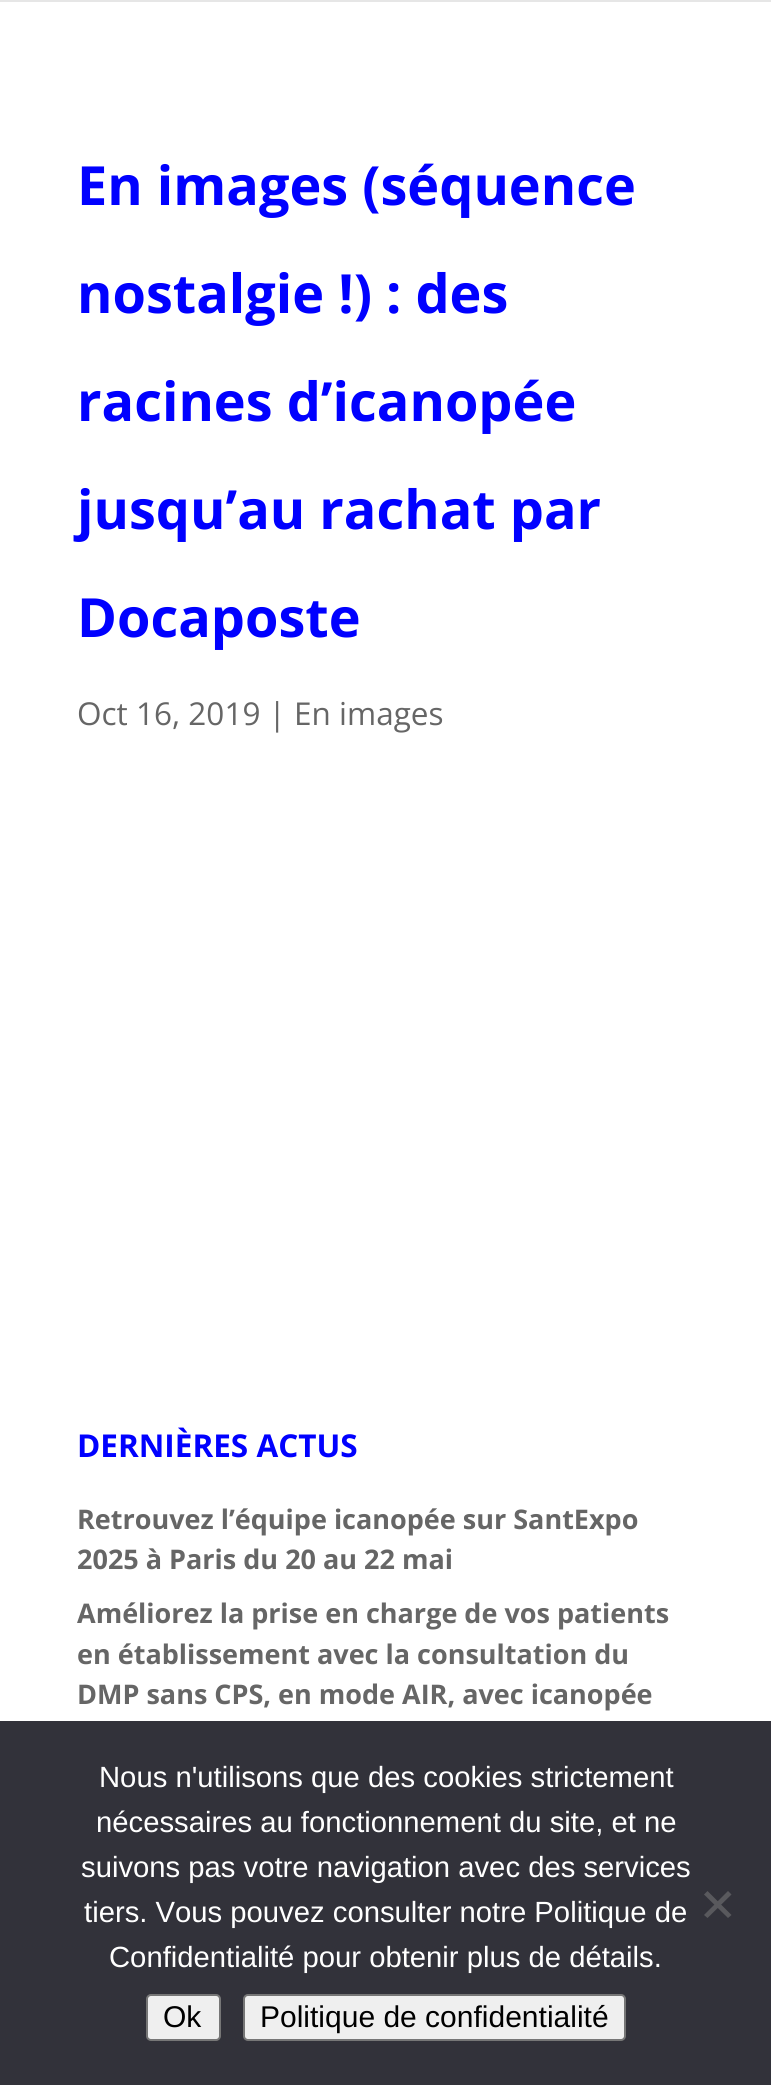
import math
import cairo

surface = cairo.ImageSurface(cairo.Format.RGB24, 771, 2085)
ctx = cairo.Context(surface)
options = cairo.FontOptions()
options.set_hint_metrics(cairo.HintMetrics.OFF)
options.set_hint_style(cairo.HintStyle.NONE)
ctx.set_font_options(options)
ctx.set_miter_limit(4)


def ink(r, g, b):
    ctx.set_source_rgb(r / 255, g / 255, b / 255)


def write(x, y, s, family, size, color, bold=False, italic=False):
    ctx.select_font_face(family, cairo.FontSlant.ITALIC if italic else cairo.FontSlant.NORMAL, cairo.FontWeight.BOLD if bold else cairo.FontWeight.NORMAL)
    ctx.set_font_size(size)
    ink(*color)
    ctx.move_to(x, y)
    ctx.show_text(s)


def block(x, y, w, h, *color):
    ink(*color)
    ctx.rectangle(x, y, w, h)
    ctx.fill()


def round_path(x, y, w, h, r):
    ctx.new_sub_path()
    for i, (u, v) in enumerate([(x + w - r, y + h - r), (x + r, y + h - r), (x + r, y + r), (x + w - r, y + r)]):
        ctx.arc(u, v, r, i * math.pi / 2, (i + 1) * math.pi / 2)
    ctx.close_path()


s1 = dict(family="Open Sans", size=54, color=(0, 0, 255), bold=True)
s2 = dict(family="Open Sans", size=31.5, color=(102, 102, 102))
s3 = dict(family="Open Sans", size=31.5, color=(0, 0, 255), bold=True)
s4 = dict(family="Open Sans", size=27, color=(102, 102, 102), bold=True)
s5 = dict(family="Liberation Sans", size=29.25, color=(255, 255, 255))
s6 = dict(family="Liberation Sans", size=30, color=(0, 0, 0))

ink(255, 255, 255)
ctx.paint()
ink(230, 230, 230)
ctx.new_path()
ctx.move_to(0, 0)
ctx.line_to(0, 2)
ctx.line_to(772, 2)
ctx.line_to(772, -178)
ctx.line_to(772, 0)
ctx.close_path()
ctx.fill()
write(77, 205, "En images (séquence", **s1)
write(77, 313, "nostalgie !) : des", **s1)
write(77, 421, "racines d’icanopée", **s1)
write(77, 529, "jusqu’au rachat par", **s1)
write(77, 637, "Docaposte", **s1)
write(77, 725, "Oct 16, 2019 | En images", **s2)
write(77, 1457, "DERNIÈRES ACTUS", **s3)
write(77, 1529, "Retrouvez l’équipe icanopée sur SantExpo", **s4)
write(77, 1569, "2025 à Paris du 20 au 22 mai", **s4)
write(77, 1623, "Améliorez la prise en charge de vos patients", **s4)
write(77, 1664, "en établissement avec la consultation du", **s4)
write(77, 1704, "DMP sans CPS, en mode AIR, avec icanopée", **s4)
block(0, 1721, 771, 364, 50, 50, 58)
write(99, 1787, "Nous n'utilisons que des cookies strictement", **s5)
write(96, 1832, "nécessaires au fonctionnement du site, et ne", **s5)
write(81, 1877, "suivons pas votre navigation avec des services", **s5)
write(84, 1922, "tiers. Vous pouvez consulter notre Politique de", **s5)
write(109, 1967, "Confidentialité pour obtenir plus de détails.", **s5)
ink(89, 89, 93)
ctx.new_path()
ctx.move_to(728, 1891)
ctx.line_to(731.5, 1894.5)
ctx.line_to(707.5, 1918)
ctx.line_to(704, 1915)
ctx.close_path()
ctx.fill()
ctx.new_path()
ctx.move_to(704, 1894.5)
ctx.line_to(707.5, 1891)
ctx.line_to(731.5, 1915)
ctx.line_to(728, 1918)
ctx.close_path()
ctx.fill()
ink(239, 239, 239)
round_path(147, 1995, 73, 45, 4)
ctx.fill_preserve()
ink(118, 118, 118)
ctx.stroke()
write(163, 2027, "Ok", **s6)
ink(239, 239, 239)
round_path(244, 1995, 381, 45, 4)
ctx.fill_preserve()
ink(118, 118, 118)
ctx.stroke()
write(260, 2027, "Politique de confidentialité", **s6)
surface.write_to_png("screenshot.png")
